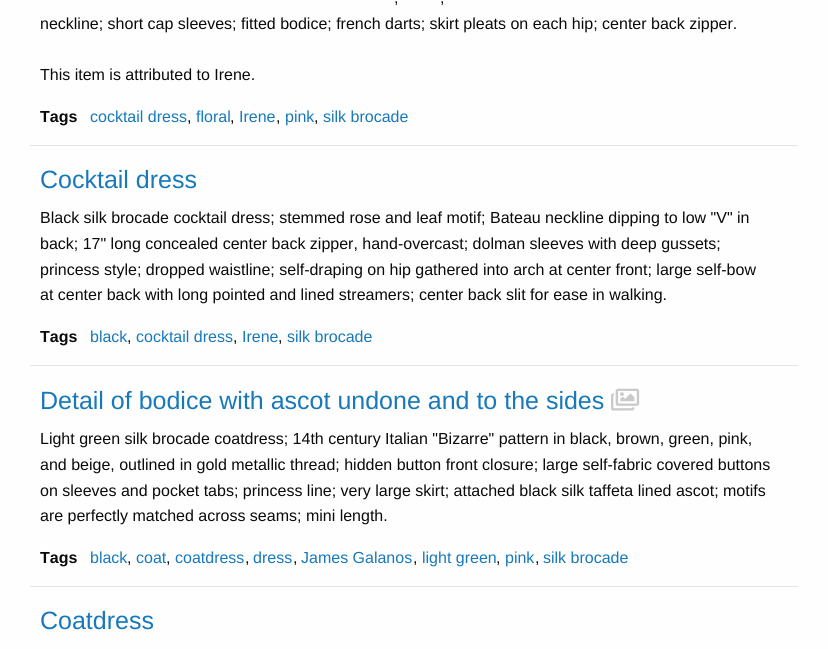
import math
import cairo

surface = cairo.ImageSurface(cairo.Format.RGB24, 828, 649)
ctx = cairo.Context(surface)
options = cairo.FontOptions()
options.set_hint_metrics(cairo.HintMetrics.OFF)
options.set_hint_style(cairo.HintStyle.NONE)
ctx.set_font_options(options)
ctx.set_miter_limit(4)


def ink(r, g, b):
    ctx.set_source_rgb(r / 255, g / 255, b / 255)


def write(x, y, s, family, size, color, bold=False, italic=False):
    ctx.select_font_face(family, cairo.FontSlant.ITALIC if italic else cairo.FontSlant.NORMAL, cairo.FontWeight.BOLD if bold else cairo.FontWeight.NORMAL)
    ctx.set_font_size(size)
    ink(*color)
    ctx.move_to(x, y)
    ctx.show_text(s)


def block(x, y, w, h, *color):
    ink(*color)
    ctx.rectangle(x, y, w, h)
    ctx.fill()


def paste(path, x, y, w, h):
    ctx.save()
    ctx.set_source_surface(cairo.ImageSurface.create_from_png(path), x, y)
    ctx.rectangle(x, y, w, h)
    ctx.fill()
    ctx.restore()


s1 = dict(family="Liberation Sans", size=16, color=(10, 10, 10))
s2 = dict(family="Liberation Sans", size=16, color=(10, 10, 10), bold=True)
s3 = dict(family="Liberation Sans", size=16, color=(23, 121, 186))
s4 = dict(family="Liberation Sans", size=25, color=(23, 121, 186))

ink(254, 254, 254)
ctx.paint()
block(30, 145, 768, 1, 230, 230, 230)
write(394, 3, ",", **s1)
write(440, 3, ",", **s1)
write(40, 29, "neckline; short cap sleeves; fitted bodice; french darts; skirt pleats on each hip; center back zipper.", **s1)
write(40, 80, "This item is attributed to Irene.", **s1)
write(40, 122, "Tags", **s2)
write(90, 122, "cocktail dress", **s3)
write(187, 122, ",", **s1)
write(196, 122, "floral", **s3)
write(230, 122, ",", **s1)
write(239, 122, "Irene", **s3)
write(276, 122, ",", **s1)
write(285, 122, "pink", **s3)
write(314, 122, ",", **s1)
write(323, 122, "silk brocade", **s3)
block(30, 365, 768, 1, 230, 230, 230)
write(40, 188, "Cocktail dress", **s4)
write(40, 223, "Black silk brocade cocktail dress; stemmed rose and leaf motif; Bateau neckline dipping to low \"V\" in", **s1)
write(40, 249, "back; 17\" long concealed center back zipper, hand-overcast; dolman sleeves with deep gussets;", **s1)
write(40, 275, "princess style; dropped waistline; self-draping on hip gathered into arch at center front; large self-bow", **s1)
write(40, 300, "at center back with long pointed and lined streamers; center back slit for ease in walking.", **s1)
write(40, 342, "Tags", **s2)
write(90, 342, "black", **s3)
write(127, 342, ",", **s1)
write(136, 342, "cocktail dress", **s3)
write(233, 342, ",", **s1)
write(242, 342, "Irene", **s3)
write(278, 342, ",", **s1)
write(287, 342, "silk brocade", **s3)
block(30, 586, 768, 1, 230, 230, 230)
write(40, 409, "Detail of bodice with ascot undone and to the sides", **s4)
paste("pic1.png", 611, 388, 29, 23)
write(40, 444, "Light green silk brocade coatdress; 14th century Italian \"Bizarre\" pattern in black, brown, green, pink,", **s1)
write(40, 470, "and beige, outlined in gold metallic thread; hidden button front closure; large self-fabric covered buttons", **s1)
write(40, 496, "on sleeves and pocket tabs; princess line; very large skirt; attached black silk taffeta lined ascot; motifs", **s1)
write(40, 521, "are perfectly matched across seams; mini length.", **s1)
write(40, 563, "Tags", **s2)
write(90, 563, "black", **s3)
write(127, 563, ",", **s1)
write(136, 563, "coat", **s3)
write(166, 563, ",", **s1)
write(175, 563, "coatdress", **s3)
write(245, 563, ",", **s1)
write(253, 563, "dress", **s3)
write(293, 563, ",", **s1)
write(301, 563, "James Galanos", **s3)
write(413, 563, ",", **s1)
write(422, 563, "light green", **s3)
write(496, 563, ",", **s1)
write(505, 563, "pink", **s3)
write(535, 563, ",", **s1)
write(543, 563, "silk brocade", **s3)
write(40, 629, "Coatdress", **s4)
surface.write_to_png("screenshot.png")
